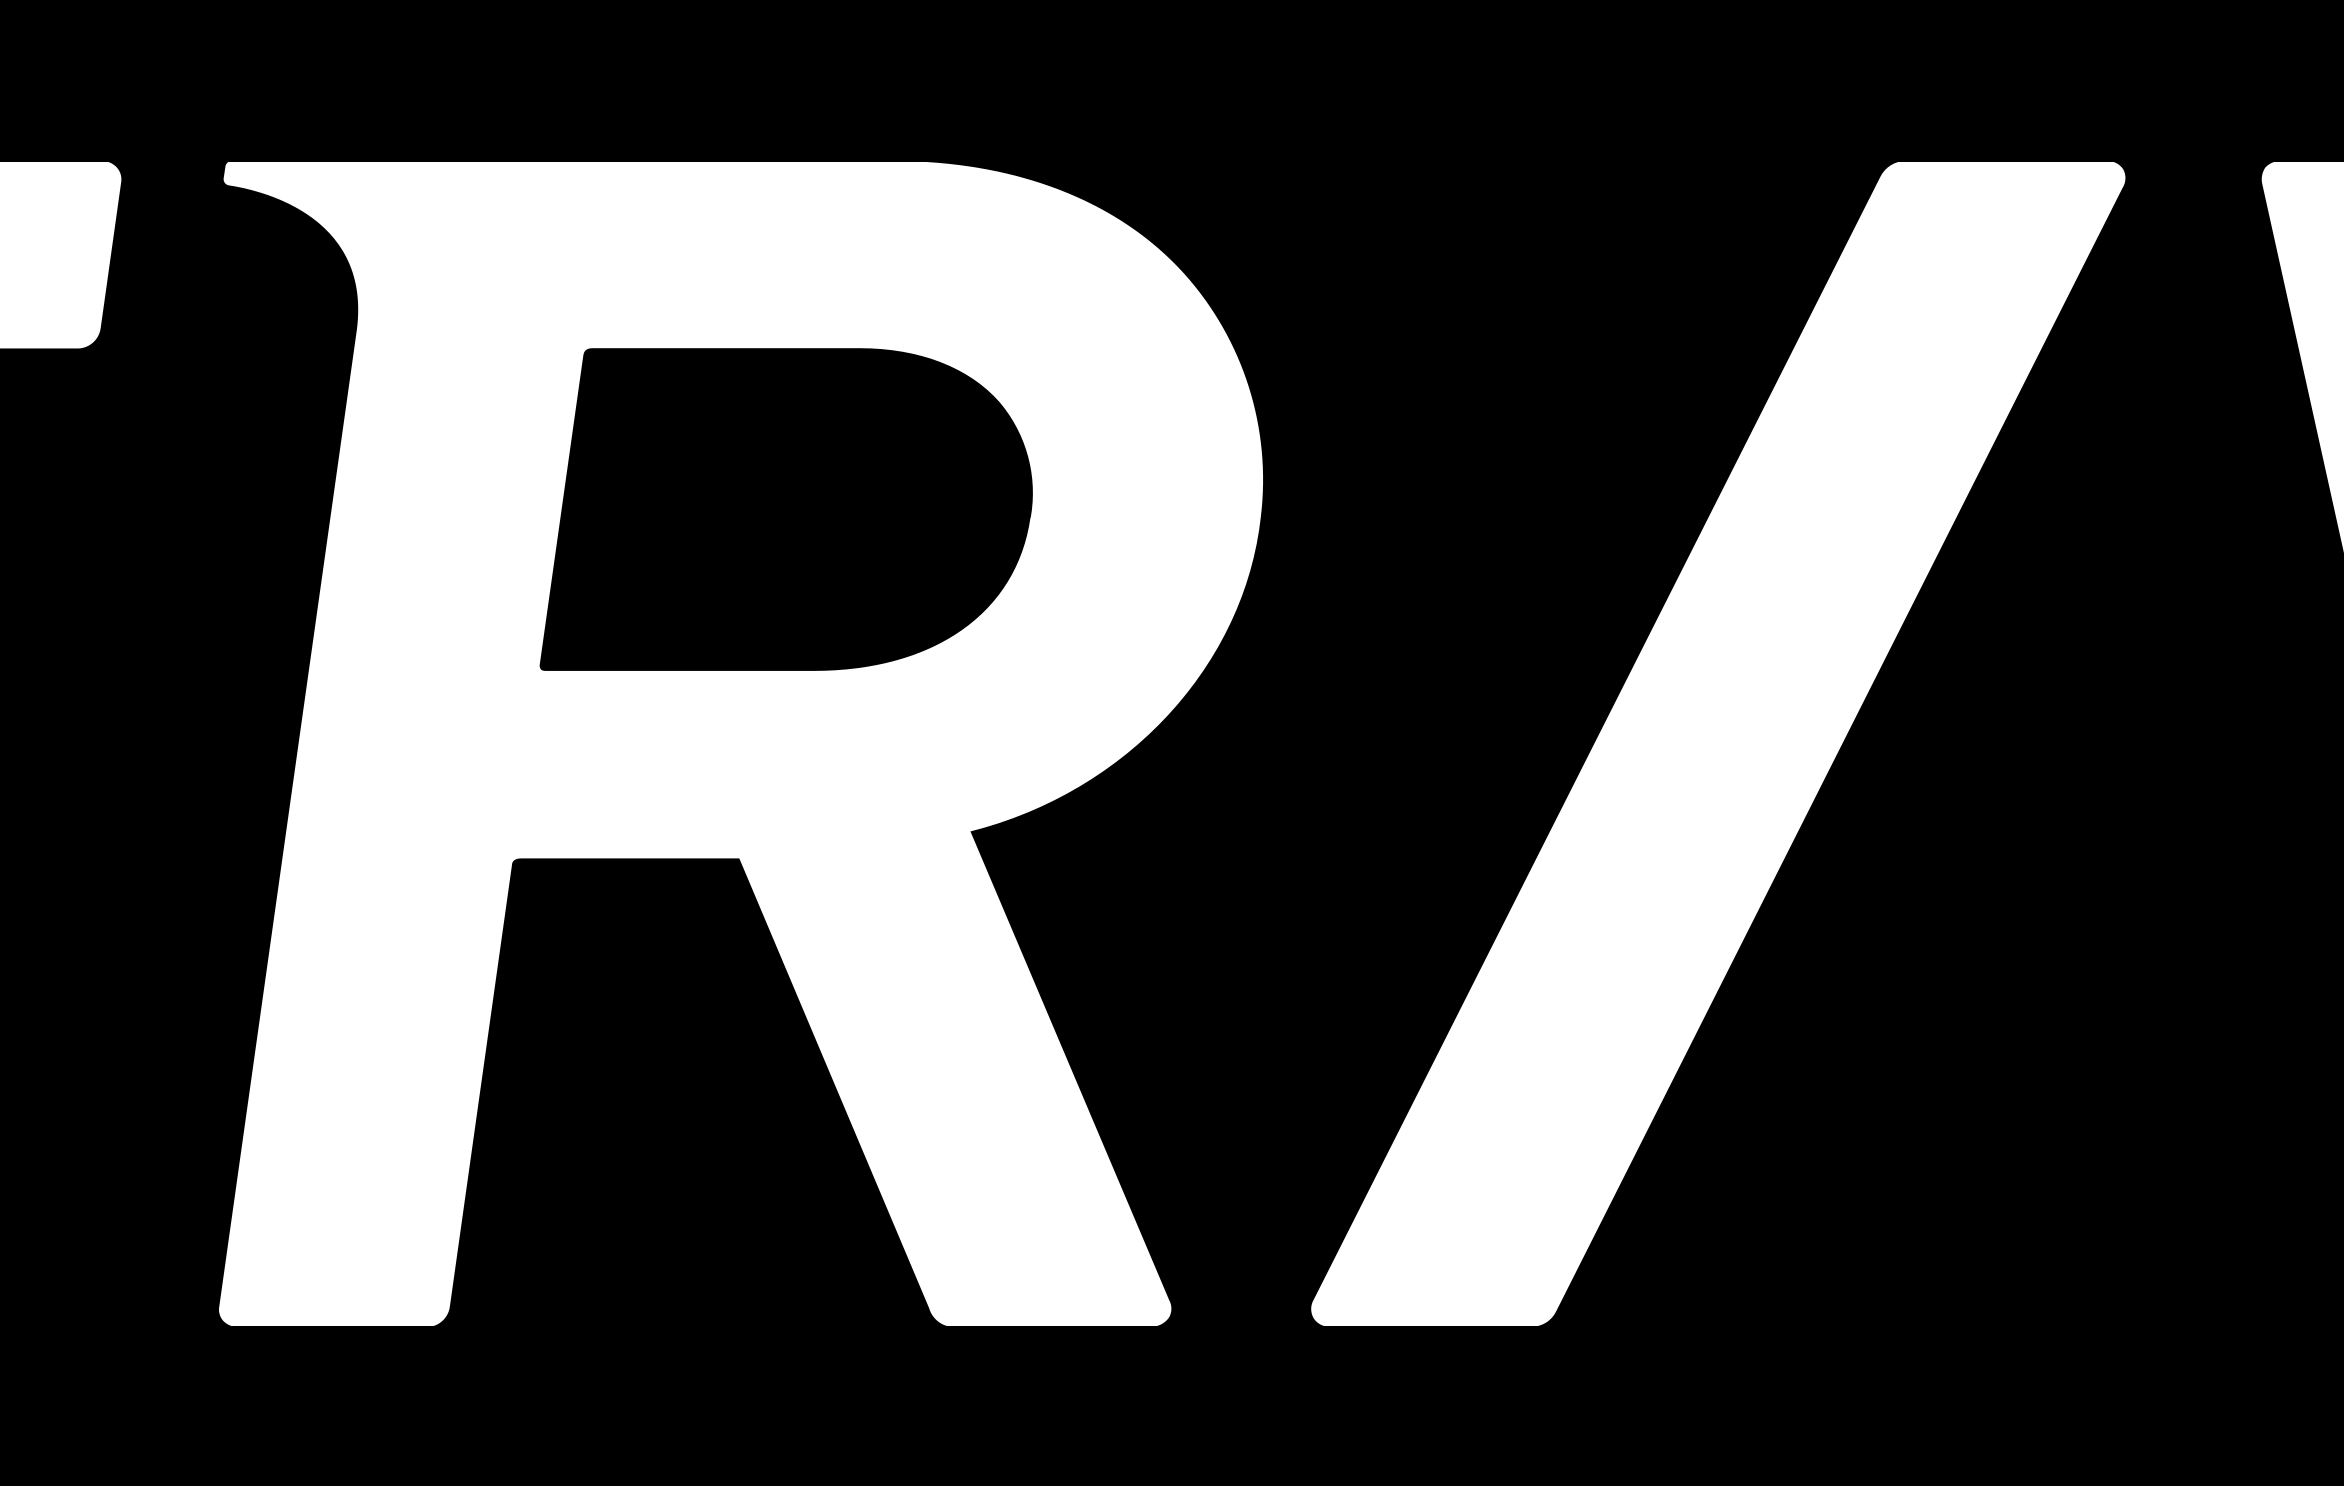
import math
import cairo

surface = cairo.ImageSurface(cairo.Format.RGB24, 2344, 1486)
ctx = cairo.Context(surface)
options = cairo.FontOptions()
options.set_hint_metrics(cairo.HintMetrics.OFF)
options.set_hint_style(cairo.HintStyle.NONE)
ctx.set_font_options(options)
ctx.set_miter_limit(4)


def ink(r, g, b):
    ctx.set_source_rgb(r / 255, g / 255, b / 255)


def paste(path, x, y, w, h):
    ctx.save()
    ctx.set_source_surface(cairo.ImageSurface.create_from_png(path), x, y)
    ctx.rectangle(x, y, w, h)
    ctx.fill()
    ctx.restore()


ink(0, 0, 0)
ctx.paint()
paste("pic1.png", 0, 162, 2344, 1164)
surface.write_to_png("screenshot.png")
